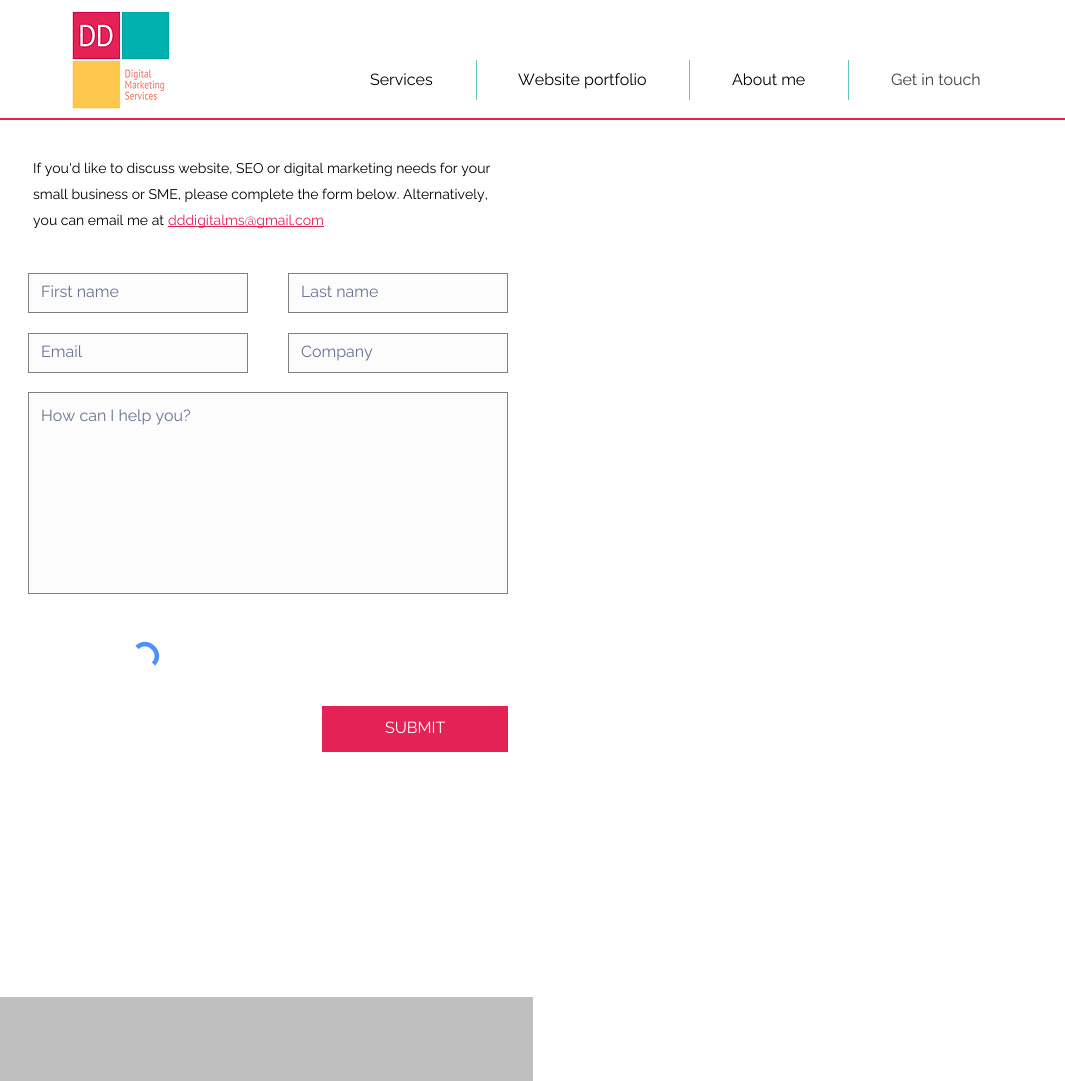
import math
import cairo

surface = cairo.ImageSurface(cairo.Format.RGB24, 1065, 1081)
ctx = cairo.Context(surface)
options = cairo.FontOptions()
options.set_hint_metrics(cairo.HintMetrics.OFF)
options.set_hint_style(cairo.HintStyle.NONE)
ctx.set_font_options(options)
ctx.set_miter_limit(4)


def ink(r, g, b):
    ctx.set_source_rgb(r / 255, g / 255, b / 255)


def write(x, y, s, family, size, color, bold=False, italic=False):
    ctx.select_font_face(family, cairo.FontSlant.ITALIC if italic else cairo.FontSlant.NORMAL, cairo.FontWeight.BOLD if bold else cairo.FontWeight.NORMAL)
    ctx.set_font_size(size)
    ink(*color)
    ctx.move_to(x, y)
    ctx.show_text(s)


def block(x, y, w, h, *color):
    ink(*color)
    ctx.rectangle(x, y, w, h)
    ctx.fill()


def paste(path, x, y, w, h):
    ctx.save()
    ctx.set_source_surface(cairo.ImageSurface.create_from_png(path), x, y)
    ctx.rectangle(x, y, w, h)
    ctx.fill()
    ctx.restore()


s1 = dict(family="Raleway", size=16, color=(0, 0, 0))
s2 = dict(family="Raleway", size=16, color=(64, 64, 64))
s3 = dict(family="Raleway", size=14, color=(0, 0, 0))
s4 = dict(family="Raleway", size=14, color=(228, 34, 86))
s5 = dict(family="Raleway", size=16, color=(104, 115, 147))
s6 = dict(family="Raleway", size=16, color=(255, 255, 255))

ink(255, 255, 255)
ctx.paint()
paste("pic1.png", 72, 11, 98, 98)
write(370, 85, "Services", **s1)
block(476, 60, 1, 40, 98, 197, 196)
write(518, 85, "Website portfolio", **s1)
block(689, 60, 1, 40, 98, 197, 196)
write(732, 85, "About me", **s1)
block(848, 60, 1, 40, 98, 197, 196)
write(891, 85, "Get in touch", **s2)
block(0, 118, 1065, 2, 228, 34, 86)
write(33, 173, "If you'd like to discuss website, SEO or digital marketing needs for your", **s3)
write(33, 199, "small business or SME, please complete the form below. Alternatively,", **s3)
write(33, 225, "you can email me at", **s3)
block(168, 226, 156, 1, 228, 34, 86)
write(168, 225, "dddigitalms@gmail.com", **s4)
ink(252, 252, 252)
ctx.rectangle(28.5, 273.5, 219, 39)
ctx.fill_preserve()
ink(128, 128, 128)
ctx.set_line_width(1)
ctx.stroke()
write(41, 297, "First name", **s5)
ink(252, 252, 252)
ctx.rectangle(288.5, 273.5, 219, 39)
ctx.fill_preserve()
ink(128, 128, 128)
ctx.stroke()
write(301, 297, "Last name", **s5)
ink(252, 252, 252)
ctx.rectangle(28.5, 333.5, 219, 39)
ctx.fill_preserve()
ink(128, 128, 128)
ctx.stroke()
write(41, 357, "Email", **s5)
ink(252, 252, 252)
ctx.rectangle(288.5, 333.5, 219, 39)
ctx.fill_preserve()
ink(128, 128, 128)
ctx.stroke()
write(301, 357, "Company", **s5)
ink(252, 252, 252)
ctx.rectangle(28.5, 392.5, 479, 201)
ctx.fill_preserve()
ink(128, 128, 128)
ctx.stroke()
write(41, 421, "How can I help you?", **s5)
ctx.new_path()
ctx.move_to(137, 647.5)
ctx.curve_to(147.5, 637, 164, 653, 153.5, 664)
ink(77, 144, 254)
ctx.set_line_width(4.6)
ctx.stroke()
block(322, 706, 186, 46, 228, 34, 86)
write(385, 733, "SUBMIT", **s6)
block(0, 997, 533, 84, 191, 191, 191)
surface.write_to_png("screenshot.png")
